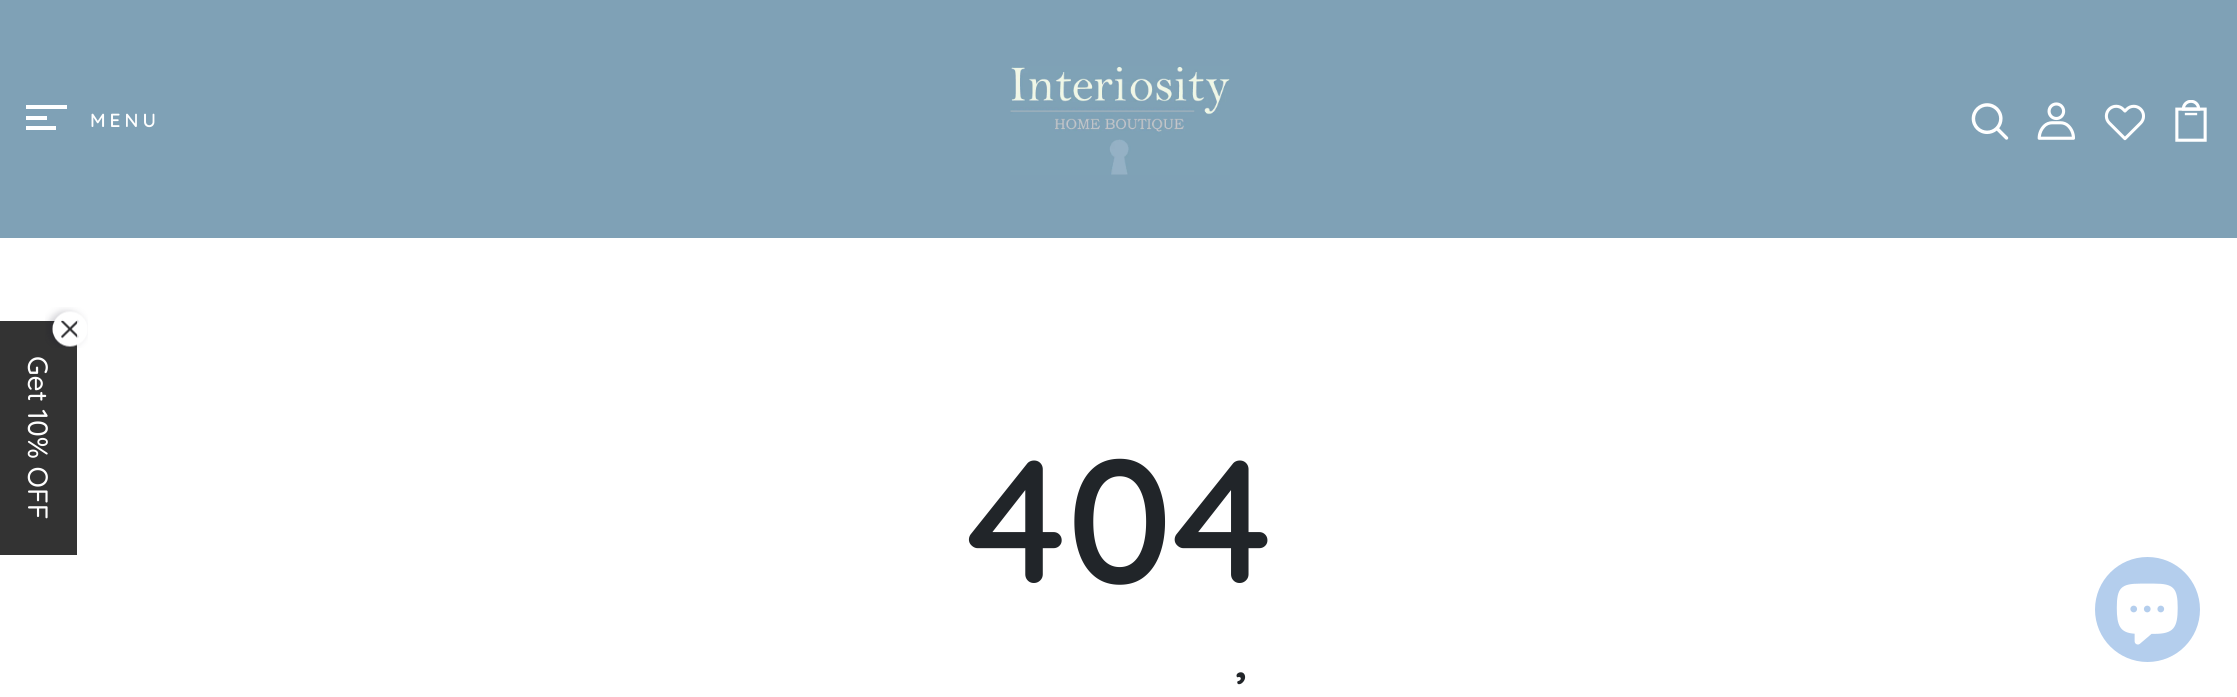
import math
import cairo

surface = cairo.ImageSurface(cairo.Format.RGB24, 2237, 697)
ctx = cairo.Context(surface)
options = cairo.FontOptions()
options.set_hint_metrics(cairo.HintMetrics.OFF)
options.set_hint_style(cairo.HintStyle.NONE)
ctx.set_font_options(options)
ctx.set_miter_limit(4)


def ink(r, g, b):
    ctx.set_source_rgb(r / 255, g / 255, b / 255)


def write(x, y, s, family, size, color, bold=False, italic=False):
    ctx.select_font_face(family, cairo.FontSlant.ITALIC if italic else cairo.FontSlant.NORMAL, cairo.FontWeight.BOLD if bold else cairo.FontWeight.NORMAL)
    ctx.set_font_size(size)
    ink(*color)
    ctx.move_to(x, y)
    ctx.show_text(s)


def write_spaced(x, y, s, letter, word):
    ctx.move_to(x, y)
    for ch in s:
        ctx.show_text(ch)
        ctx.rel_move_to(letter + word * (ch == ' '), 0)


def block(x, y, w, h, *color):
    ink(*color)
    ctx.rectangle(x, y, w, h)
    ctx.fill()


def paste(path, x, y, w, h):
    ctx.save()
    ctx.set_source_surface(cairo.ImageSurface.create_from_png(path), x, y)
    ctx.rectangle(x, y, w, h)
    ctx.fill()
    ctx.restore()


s1 = dict(family="Quicksand Medium", size=28, color=(255, 255, 255))
s2 = dict(family="Quicksand SemiBold", size=175, color=(33, 37, 41))
s3 = dict(family="Quicksand SemiBold", size=52, color=(33, 37, 41))

ink(255, 255, 255)
ctx.paint()
block(0, 321, 77, 234, 51, 51, 51)
paste("pic1.png", 45, 307, 43, 41)
ctx.save()
ctx.translate(28, 356)
ctx.rotate(90 * math.pi / 180)
write(0, 0, "Get 10% OFF", **s1)
ctx.restore()
block(0, 0, 2237, 238, 127, 161, 182)
block(26, 105, 41, 4, 255, 255, 255)
block(26, 116, 21, 4, 255, 255, 255)
block(26, 126, 30, 4, 255, 255, 255)
ctx.select_font_face("Quicksand SemiBold")
ctx.set_font_size(19)
write_spaced(90, 127, "MENU", 4, 0)
paste("pic2.png", 1010, 66, 220, 109)
paste("pic3.png", 1971, 103, 38, 37)
paste("pic4.png", 2037, 102, 38, 38)
paste("pic5.png", 2104, 104, 41, 37)
paste("pic6.png", 2175, 100, 32, 42)
write(967, 583, "404", **s2)
write(1235, 709, "’", **s3)
ink(180, 206, 237)
ctx.new_path()
ctx.arc(2147.5, 609.5, 52.5, 0, 2 * math.pi)
ctx.fill()
paste("pic7.png", 2116, 583, 62, 62)
surface.write_to_png("screenshot.png")
